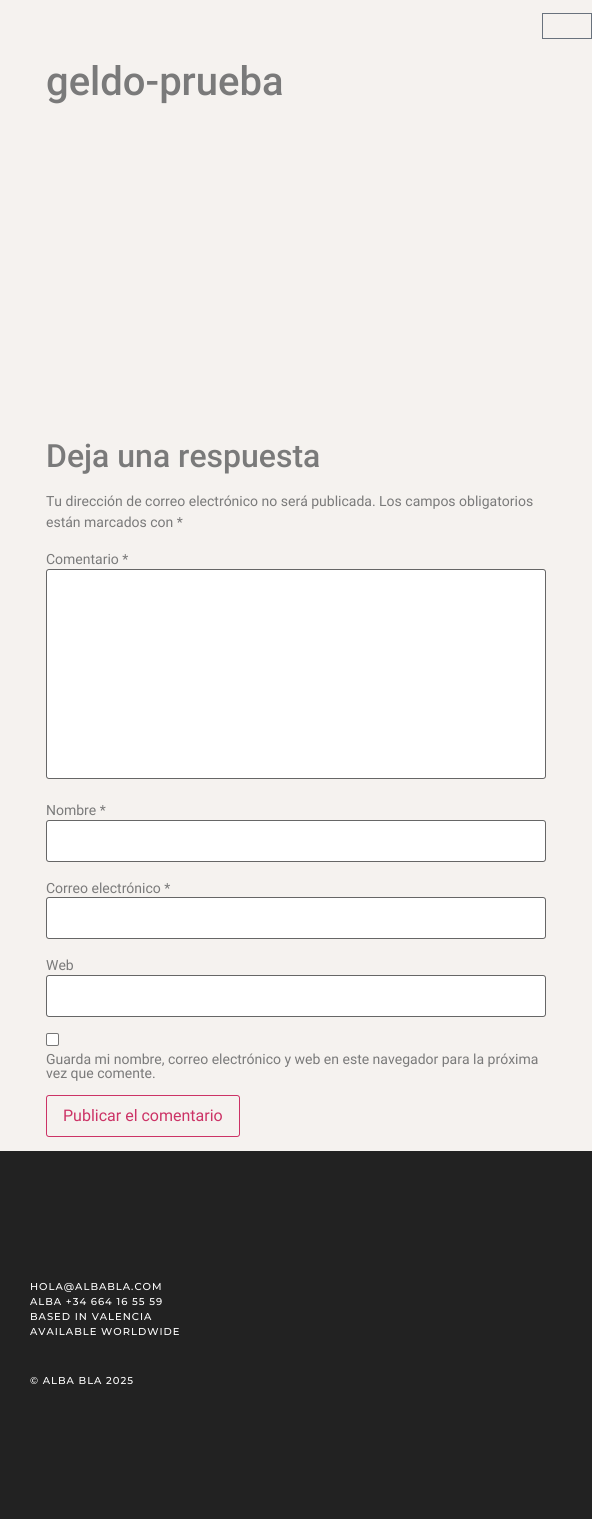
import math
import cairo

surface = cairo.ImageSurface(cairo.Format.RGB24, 592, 1519)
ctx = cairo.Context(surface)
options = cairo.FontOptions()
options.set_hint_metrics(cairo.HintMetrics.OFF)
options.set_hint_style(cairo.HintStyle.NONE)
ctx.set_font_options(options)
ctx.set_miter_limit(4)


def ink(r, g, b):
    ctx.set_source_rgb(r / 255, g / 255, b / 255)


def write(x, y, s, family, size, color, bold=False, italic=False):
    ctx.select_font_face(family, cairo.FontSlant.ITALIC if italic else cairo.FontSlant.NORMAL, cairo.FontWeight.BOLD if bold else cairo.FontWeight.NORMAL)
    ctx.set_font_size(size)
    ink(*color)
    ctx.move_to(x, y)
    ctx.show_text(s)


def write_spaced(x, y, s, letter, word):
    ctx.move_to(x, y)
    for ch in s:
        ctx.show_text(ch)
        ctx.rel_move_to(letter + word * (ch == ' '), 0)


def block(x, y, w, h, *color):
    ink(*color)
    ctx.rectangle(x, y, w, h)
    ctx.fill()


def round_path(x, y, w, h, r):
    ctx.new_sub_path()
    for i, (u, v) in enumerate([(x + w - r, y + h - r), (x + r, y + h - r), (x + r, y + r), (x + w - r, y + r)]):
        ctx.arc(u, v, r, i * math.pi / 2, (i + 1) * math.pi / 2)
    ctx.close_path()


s1 = dict(family="Roboto Medium", size=40, color=(122, 122, 122))
s2 = dict(family="Roboto Medium", size=32, color=(122, 122, 122))
s3 = dict(family="Roboto", size=14, color=(122, 122, 122))
s4 = dict(family="Roboto", size=16, color=(204, 51, 102))

ink(245, 242, 239)
ctx.paint()
ctx.rectangle(542.5, 13.5, 49, 25)
ink(105, 114, 125)
ctx.set_line_width(1)
ctx.stroke()
write(46, 95, "geldo-prueba", **s1)
write(46, 467, "Deja una respuesta", **s2)
write(46, 506, "Tu dirección de correo electrónico no será publicada. Los campos obligatorios", **s3)
write(46, 527, "están marcados con *", **s3)
write(46, 564, "Comentario *", **s3)
ink(255, 255, 255)
round_path(46.5, 569.5, 499, 209, 2.5)
ctx.fill_preserve()
ink(102, 102, 102)
ctx.stroke()
write(46, 815, "Nombre *", **s3)
ink(255, 255, 255)
round_path(46.5, 820.5, 499, 41, 2.5)
ctx.fill_preserve()
ink(102, 102, 102)
ctx.stroke()
write(46, 893, "Correo electrónico *", **s3)
ink(255, 255, 255)
round_path(46.5, 897.5, 499, 41, 2.5)
ctx.fill_preserve()
ink(102, 102, 102)
ctx.stroke()
write(46, 970, "Web", **s3)
ink(255, 255, 255)
round_path(46.5, 975.5, 499, 41, 2.5)
ctx.fill_preserve()
ink(102, 102, 102)
ctx.stroke()
ink(255, 255, 255)
round_path(46.5, 1033.5, 12, 12, 1.5)
ctx.fill_preserve()
ink(118, 118, 118)
ctx.stroke()
write(46, 1064, "Guarda mi nombre, correo electrónico y web en este navegador para la próxima", **s3)
write(46, 1078, "vez que comente.", **s3)
round_path(46.5, 1095.5, 193, 41, 2.5)
ink(204, 51, 102)
ctx.stroke()
write(63, 1121, "Publicar el comentario", **s4)
block(0, 1151, 592, 368, 34, 34, 34)
ctx.select_font_face("Montserrat Medium")
ctx.set_font_size(10)
ink(255, 255, 255)
write_spaced(30, 1290, "HOLA@ALBABLA.COM", 1, 0)
write_spaced(30, 1305, "ALBA +34 664 16 55 59", 1, 0)
write_spaced(30, 1320, "BASED IN VALENCIA", 1, 0)
write_spaced(30, 1335, "AVAILABLE WORLDWIDE", 1, 0)
write_spaced(30, 1384, "© ALBA BLA 2025", 1, 0)
surface.write_to_png("screenshot.png")
